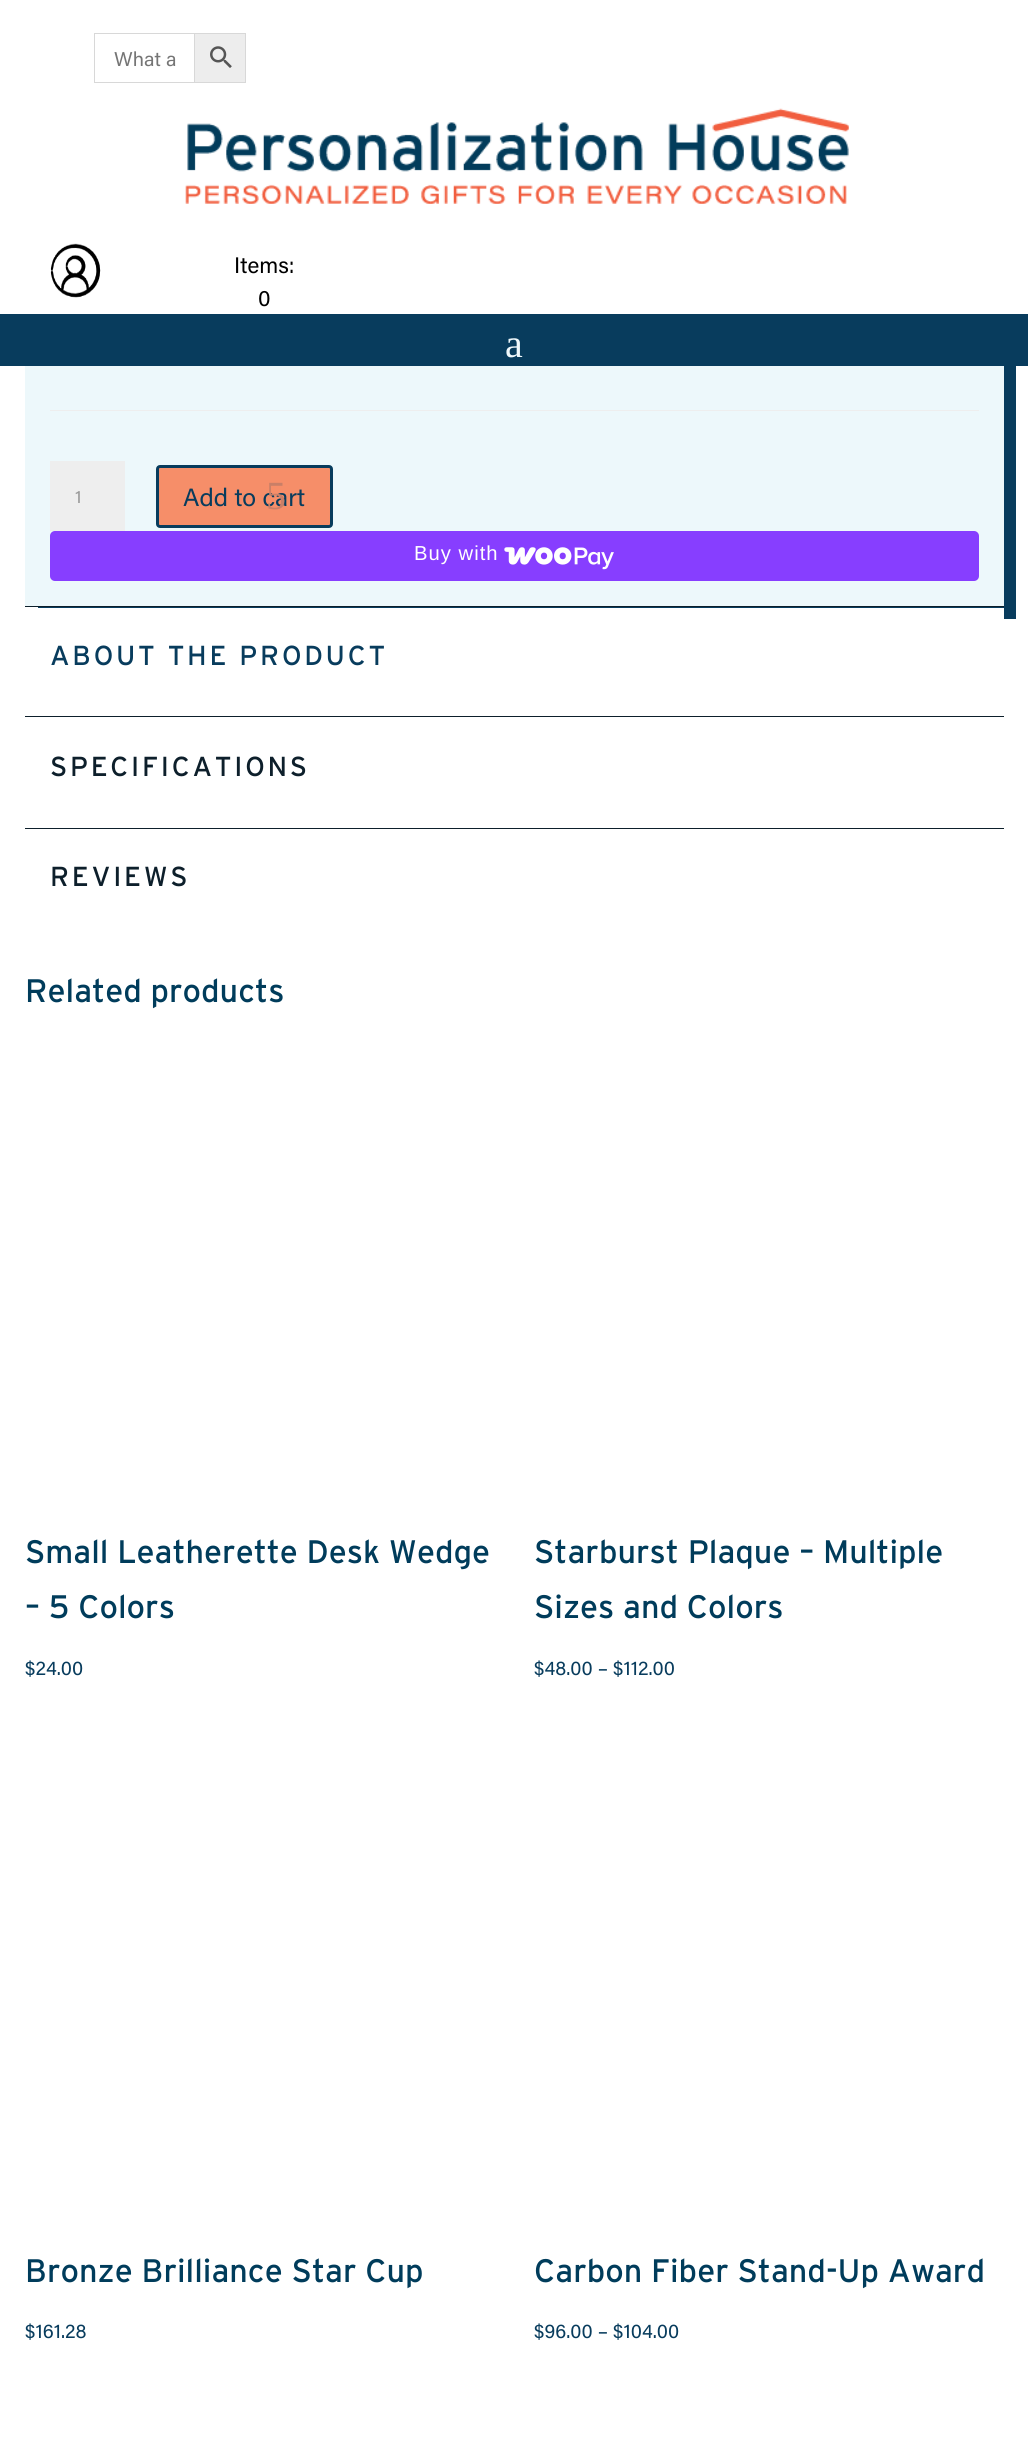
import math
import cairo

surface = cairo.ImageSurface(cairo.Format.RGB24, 1028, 2442)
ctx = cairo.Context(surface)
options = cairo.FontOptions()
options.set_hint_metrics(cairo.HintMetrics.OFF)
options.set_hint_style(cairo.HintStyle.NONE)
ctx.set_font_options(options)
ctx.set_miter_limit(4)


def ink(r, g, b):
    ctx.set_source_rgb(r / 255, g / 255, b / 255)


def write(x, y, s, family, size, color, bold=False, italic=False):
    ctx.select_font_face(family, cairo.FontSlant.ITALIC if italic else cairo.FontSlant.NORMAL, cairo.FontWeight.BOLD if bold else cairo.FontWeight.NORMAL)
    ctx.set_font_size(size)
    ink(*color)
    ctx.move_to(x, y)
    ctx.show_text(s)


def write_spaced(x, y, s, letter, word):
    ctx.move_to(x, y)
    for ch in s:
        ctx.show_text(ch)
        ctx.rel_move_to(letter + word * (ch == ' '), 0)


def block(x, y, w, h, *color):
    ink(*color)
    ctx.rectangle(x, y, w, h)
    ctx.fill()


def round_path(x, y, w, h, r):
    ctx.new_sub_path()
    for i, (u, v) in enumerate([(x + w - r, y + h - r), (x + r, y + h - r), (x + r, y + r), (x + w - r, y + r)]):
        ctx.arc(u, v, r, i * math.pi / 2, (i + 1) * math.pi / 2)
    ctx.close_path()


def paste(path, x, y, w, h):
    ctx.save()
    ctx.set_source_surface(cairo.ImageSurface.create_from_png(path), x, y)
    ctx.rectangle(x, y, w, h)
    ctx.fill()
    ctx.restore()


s1 = dict(family="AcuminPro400", size=20, color=(117, 117, 117))
s2 = dict(family="AcuminPro400", size=22.5, color=(0, 0, 0))
s3 = dict(family="Liberation Serif", size=40, color=(239, 248, 251))
s4 = dict(family="AcuminPro400", size=18, color=(153, 153, 153))
s5 = dict(family="AcuminPro400", size=25, color=(8, 60, 93))
s6 = dict(family="Liberation Serif", size=40, color=(201, 127, 103))
s7 = dict(family="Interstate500", size=32.5, color=(0, 60, 91))
s8 = dict(family="AcuminPro400", size=20, color=(8, 60, 93))

ink(255, 255, 255)
ctx.paint()
ink(8, 60, 93)
ctx.new_path()
ctx.move_to(38, 606)
ctx.line_to(38, 619)
ctx.line_to(1016, 619)
ctx.line_to(1016, -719)
ctx.line_to(1004, -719)
ctx.line_to(1004, 606)
ctx.close_path()
ctx.fill()
block(1004, 0, 12, 314, 255, 255, 255)
ink(237, 237, 237)
ctx.rectangle(194.5, 33.5, 51, 49)
ctx.fill_preserve()
ink(216, 216, 216)
ctx.set_line_width(1)
ctx.stroke()
ctx.rectangle(94.5, 33.5, 100, 49)
ctx.stroke()
write(114, 66, "What a", **s1)
paste("pic1.png", 210, 46, 22, 22)
paste("pic2.png", 185, 108, 664, 96)
paste("pic3.png", 50, 243, 51, 55)
write(234, 273, "Items:", **s2)
write(258, 306, "0", **s2)
block(0, 314, 1028, 52, 8, 60, 93)
write(505, 357, "a", **s3)
block(25, 366, 979, 240, 237, 248, 251)
block(50, 410, 929, 1, 238, 238, 238)
block(50, 461, 75, 70, 238, 238, 238)
write(75, 503, "1", **s4)
ink(246, 142, 105)
round_path(157.5, 466.5, 174, 60, 2.5)
ctx.fill_preserve()
ink(8, 60, 93)
ctx.set_line_width(3)
ctx.stroke()
write(183, 506, "Add to cart", **s5)
write(266, 509, "5", **s6)
ink(135, 62, 255)
round_path(50, 531, 929, 50, 5)
ctx.fill()
ctx.select_font_face("Liberation Sans")
ctx.set_font_size(20.25)
ink(255, 255, 255)
write_spaced(414, 560, "Buy with", 1, 0)
paste("pic4.png", 504, 547, 110, 23)
block(38, 608, 966, 11, 255, 255, 255)
block(25, 606, 979, 1, 13, 31, 43)
ctx.select_font_face("Interstate500")
ctx.set_font_size(27.5)
ink(8, 60, 93)
write_spaced(50, 665, "ABOUT THE PRODUCT", 2.75, 0)
block(25, 716, 979, 1, 13, 31, 43)
write_spaced(50, 776, "SPECIFICATIONS", 2.75, 0)
block(25, 828, 979, 1, 13, 31, 43)
write_spaced(50, 886, "REVIEWS", 2.75, 0)
write(25, 1002, "Related products", **s7)
write(25, 1563, "Small Leatherette Desk Wedge", **s7)
write(25, 1618, "– 5 Colors", **s7)
write(25, 1675, "$24.00", **s8)
write(534, 1563, "Starburst Plaque – Multiple", **s7)
write(534, 1618, "Sizes and Colors", **s7)
write(534, 1675, "$48.00 – $112.00", **s8)
write(25, 2282, "Bronze Brilliance Star Cup", **s7)
write(25, 2338, "$161.28", **s8)
write(534, 2282, "Carbon Fiber Stand-Up Award", **s7)
write(534, 2338, "$96.00 – $104.00", **s8)
surface.write_to_png("screenshot.png")
